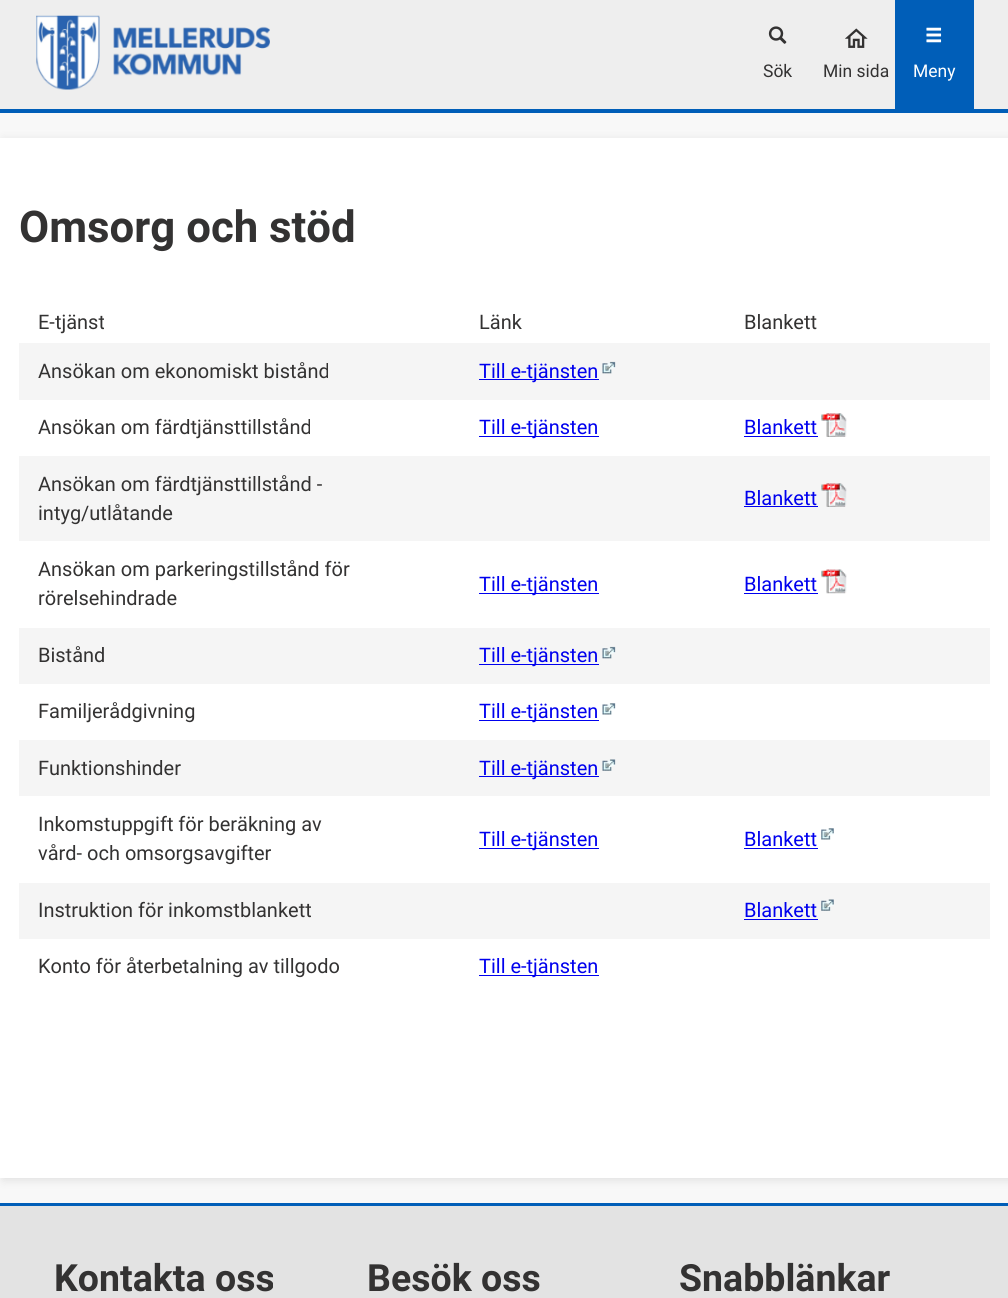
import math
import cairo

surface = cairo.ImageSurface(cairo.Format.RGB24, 1008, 1298)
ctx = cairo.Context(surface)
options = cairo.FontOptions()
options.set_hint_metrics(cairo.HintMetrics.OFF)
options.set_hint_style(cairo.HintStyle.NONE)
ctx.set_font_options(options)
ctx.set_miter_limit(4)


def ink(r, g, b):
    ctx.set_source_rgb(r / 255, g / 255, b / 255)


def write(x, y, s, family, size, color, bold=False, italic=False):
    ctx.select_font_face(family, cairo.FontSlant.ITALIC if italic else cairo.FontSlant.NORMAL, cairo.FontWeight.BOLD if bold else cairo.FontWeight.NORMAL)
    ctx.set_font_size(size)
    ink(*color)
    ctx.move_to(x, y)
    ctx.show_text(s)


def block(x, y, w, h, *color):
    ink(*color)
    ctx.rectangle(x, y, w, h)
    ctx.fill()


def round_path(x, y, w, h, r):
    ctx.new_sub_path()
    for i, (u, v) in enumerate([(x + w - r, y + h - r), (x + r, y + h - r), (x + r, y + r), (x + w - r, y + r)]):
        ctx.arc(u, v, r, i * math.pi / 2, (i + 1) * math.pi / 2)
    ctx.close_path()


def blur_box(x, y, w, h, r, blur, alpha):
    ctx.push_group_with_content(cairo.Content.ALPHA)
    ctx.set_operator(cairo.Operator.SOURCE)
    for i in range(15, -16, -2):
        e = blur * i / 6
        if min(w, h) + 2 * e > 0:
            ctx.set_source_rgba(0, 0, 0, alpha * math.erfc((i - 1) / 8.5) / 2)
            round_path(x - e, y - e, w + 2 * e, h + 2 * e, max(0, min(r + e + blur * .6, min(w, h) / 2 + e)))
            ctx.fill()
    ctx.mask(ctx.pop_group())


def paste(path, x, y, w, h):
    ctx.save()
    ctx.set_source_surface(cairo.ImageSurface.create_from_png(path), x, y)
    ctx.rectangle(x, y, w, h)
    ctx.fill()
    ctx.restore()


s1 = dict(family="Roboto", size=17.5, color=(51, 50, 50))
s2 = dict(family="Roboto", size=17.5, color=(255, 255, 255))
s3 = dict(family="Roboto", size=43.75, color=(51, 50, 50), bold=True)
s4 = dict(family="Roboto", size=20, color=(51, 50, 50))
s5 = dict(family="Roboto", size=20, color=(0, 0, 238))
s6 = dict(family="Roboto", size=37.5, color=(51, 50, 50), bold=True)

ink(248, 248, 248)
ctx.paint()
block(0, 0, 1008, 109, 238, 238, 238)
paste("pic1.png", 36, 15, 234, 75)
paste("pic2.png", 768, 26, 19, 18)
write(763, 77, "Sök", **s1)
paste("pic3.png", 845, 28, 23, 20)
write(823, 77, "Min sida", **s1)
block(895, 0, 79, 109, 0, 94, 184)
paste("pic4.png", 926, 27, 16, 16)
write(913, 77, "Meny", **s2)
block(0, 109, 1008, 4, 0, 94, 184)
ink(0, 0, 0)
blur_box(3, 140, 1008, 1040, 0, 5, 0.1)
block(0, 138, 1008, 1040, 255, 255, 255)
write(19, 242, "Omsorg och stöd", **s3)
write(38, 329, "E-tjänst", **s4)
write(479, 329, "Länk", **s4)
write(744, 329, "Blankett", **s4)
block(19, 343, 971, 57, 245, 245, 245)
write(38, 378, "Ansökan om ekonomiskt bistånd", **s4)
block(479, 379, 120, 1, 0, 0, 238)
write(479, 378, "Till e-tjänsten", **s5)
paste("pic5.png", 602, 361, 14, 13)
write(38, 434, "Ansökan om färdtjänsttillstånd", **s4)
block(479, 436, 120, 1, 0, 0, 238)
write(479, 434, "Till e-tjänsten", **s5)
paste("pic6.png", 821, 413, 26, 24)
write(744, 434, "Blankett", **s5)
block(744, 436, 74, 1, 0, 0, 238)
block(19, 456, 971, 85, 245, 245, 245)
write(38, 491, "Ansökan om färdtjänsttillstånd -", **s4)
write(38, 520, "intyg/utlåtande", **s4)
paste("pic7.png", 821, 483, 26, 24)
write(744, 505, "Blankett", **s5)
block(744, 506, 74, 1, 0, 0, 238)
write(38, 576, "Ansökan om parkeringstillstånd för", **s4)
write(38, 605, "rörelsehindrade", **s4)
block(479, 593, 120, 1, 0, 0, 238)
write(479, 591, "Till e-tjänsten", **s5)
paste("pic8.png", 821, 569, 26, 25)
write(744, 591, "Blankett", **s5)
block(744, 593, 74, 1, 0, 0, 238)
block(19, 628, 971, 56, 245, 245, 245)
write(38, 662, "Bistånd", **s4)
block(479, 664, 120, 1, 0, 0, 238)
write(479, 662, "Till e-tjänsten", **s5)
paste("pic5.png", 602, 646, 14, 13)
write(38, 718, "Familjerådgivning", **s4)
block(479, 720, 120, 1, 0, 0, 238)
write(479, 718, "Till e-tjänsten", **s5)
paste("pic9.png", 602, 703, 14, 12)
block(19, 740, 971, 56, 245, 245, 245)
write(38, 775, "Funktionshinder", **s4)
block(479, 776, 120, 1, 0, 0, 238)
write(479, 775, "Till e-tjänsten", **s5)
paste("pic10.png", 602, 759, 14, 12)
write(38, 831, "Inkomstuppgift för beräkning av", **s4)
write(38, 860, "vård- och omsorgsavgifter", **s4)
block(479, 848, 120, 1, 0, 0, 238)
write(479, 846, "Till e-tjänsten", **s5)
paste("pic11.png", 821, 828, 13, 12)
write(744, 846, "Blankett", **s5)
block(744, 848, 74, 1, 0, 0, 238)
block(19, 883, 971, 56, 245, 245, 245)
write(38, 917, "Instruktion för inkomstblankett", **s4)
paste("pic12.png", 821, 899, 13, 12)
write(744, 917, "Blankett", **s5)
block(744, 919, 74, 1, 0, 0, 238)
write(38, 973, "Konto för återbetalning av tillgodo", **s4)
block(479, 975, 120, 1, 0, 0, 238)
write(479, 973, "Till e-tjänsten", **s5)
block(0, 1206, 1008, 92, 227, 227, 227)
block(0, 1203, 1008, 3, 0, 94, 184)
write(54, 1291, "Kontakta oss", **s6)
write(367, 1291, "Besök oss", **s6)
write(679, 1291, "Snabblänkar", **s6)
surface.write_to_png("screenshot.png")
